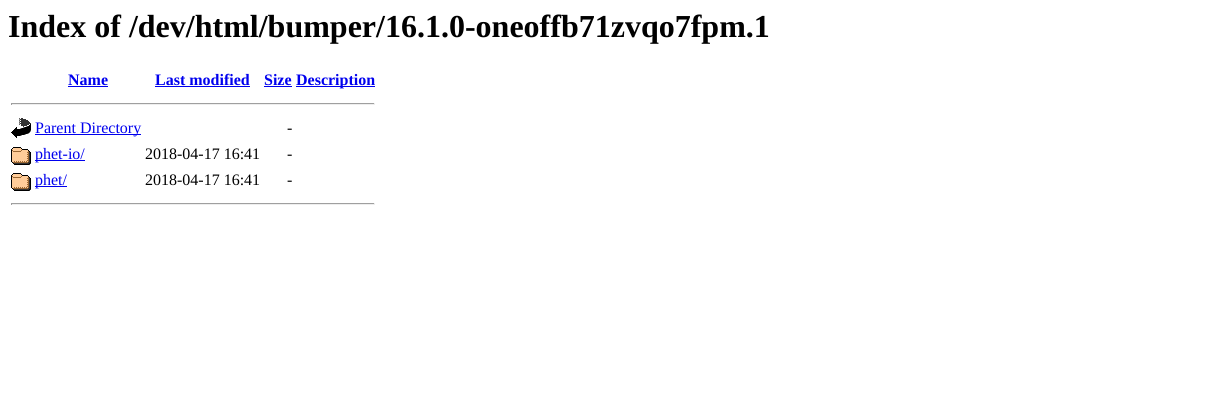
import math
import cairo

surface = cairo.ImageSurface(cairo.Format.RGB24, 1205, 413)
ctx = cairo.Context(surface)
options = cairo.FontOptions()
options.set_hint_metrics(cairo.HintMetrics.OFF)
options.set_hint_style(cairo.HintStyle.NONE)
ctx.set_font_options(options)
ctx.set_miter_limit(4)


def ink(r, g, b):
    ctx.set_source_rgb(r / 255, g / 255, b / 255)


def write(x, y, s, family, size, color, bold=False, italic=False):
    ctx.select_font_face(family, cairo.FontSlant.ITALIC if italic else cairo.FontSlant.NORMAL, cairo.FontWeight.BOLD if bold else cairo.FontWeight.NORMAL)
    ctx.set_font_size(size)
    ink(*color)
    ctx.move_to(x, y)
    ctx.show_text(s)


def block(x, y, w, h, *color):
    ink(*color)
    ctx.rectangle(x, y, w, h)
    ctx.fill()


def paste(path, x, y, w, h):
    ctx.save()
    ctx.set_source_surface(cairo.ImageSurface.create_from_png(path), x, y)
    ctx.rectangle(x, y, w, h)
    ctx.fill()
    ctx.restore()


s1 = dict(family="Liberation Serif", size=32, color=(0, 0, 0), bold=True)
s2 = dict(family="Liberation Serif", size=16, color=(0, 0, 238), bold=True)
s3 = dict(family="Liberation Serif", size=16, color=(0, 0, 238))
s4 = dict(family="Liberation Serif", size=16, color=(0, 0, 0))

ink(255, 255, 255)
ctx.paint()
write(8, 37, "Index of /dev/html/bumper/16.1.0-oneoffb71zvqo7fpm.1", **s1)
write(68, 85, "Name", **s2)
block(68, 86, 40, 1, 0, 0, 238)
write(155, 85, "Last modified", **s2)
block(155, 86, 95, 1, 0, 0, 238)
write(264, 85, "Size", **s2)
block(264, 86, 28, 1, 0, 0, 238)
block(296, 86, 79, 1, 0, 0, 238)
write(296, 85, "Description", **s2)
block(11, 103, 364, 1, 159, 159, 159)
block(374, 103, 1, 2, 238, 238, 238)
block(11, 104, 364, 1, 238, 238, 238)
block(11, 103, 1, 2, 159, 159, 159)
paste("pic1.png", 11, 118, 20, 20)
block(35, 134, 106, 1, 0, 0, 238)
write(35, 133, "Parent Directory", **s3)
write(287, 133, "-", **s4)
paste("pic2.png", 11, 147, 20, 18)
block(35, 160, 50, 1, 0, 0, 238)
write(35, 159, "phet-io/", **s3)
write(145, 159, "2018-04-17 16:41", **s4)
write(287, 159, "-", **s4)
paste("pic2.png", 11, 173, 20, 18)
block(35, 186, 32, 1, 0, 0, 238)
write(35, 185, "phet/", **s3)
write(145, 185, "2018-04-17 16:41", **s4)
write(287, 185, "-", **s4)
block(11, 203, 364, 1, 159, 159, 159)
block(374, 203, 1, 2, 238, 238, 238)
block(11, 204, 364, 1, 238, 238, 238)
block(11, 203, 1, 2, 159, 159, 159)
surface.write_to_png("screenshot.png")
